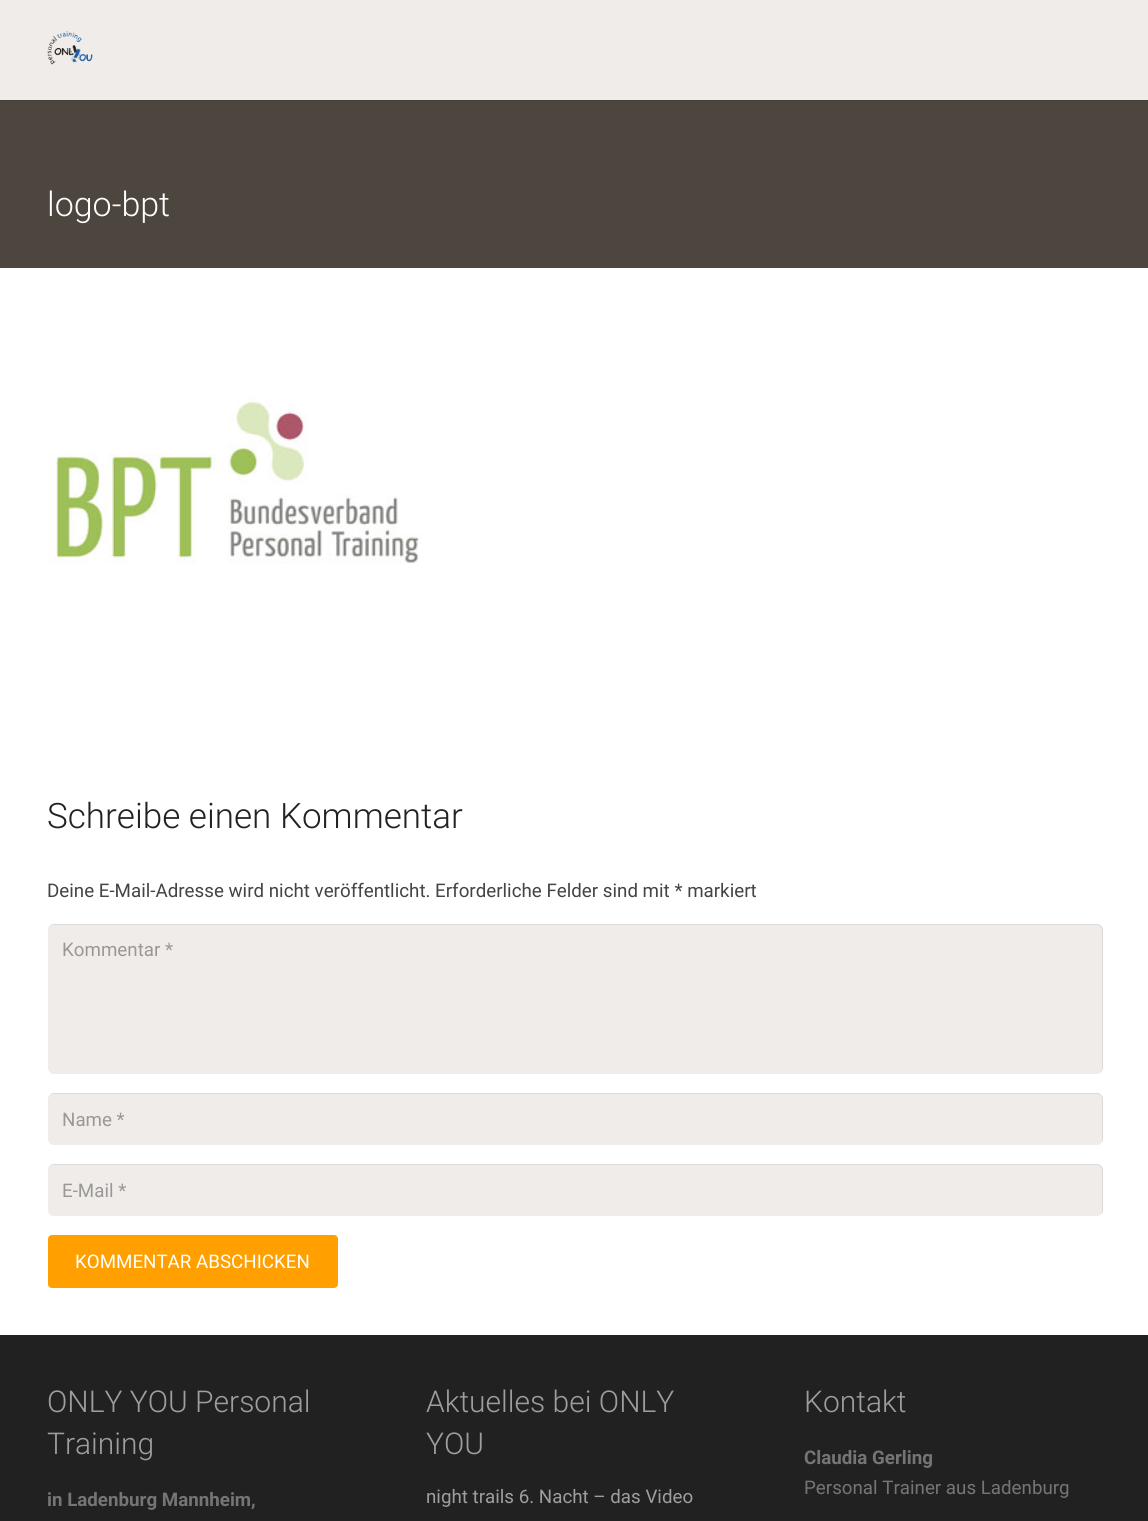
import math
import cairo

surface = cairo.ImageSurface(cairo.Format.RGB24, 1148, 1521)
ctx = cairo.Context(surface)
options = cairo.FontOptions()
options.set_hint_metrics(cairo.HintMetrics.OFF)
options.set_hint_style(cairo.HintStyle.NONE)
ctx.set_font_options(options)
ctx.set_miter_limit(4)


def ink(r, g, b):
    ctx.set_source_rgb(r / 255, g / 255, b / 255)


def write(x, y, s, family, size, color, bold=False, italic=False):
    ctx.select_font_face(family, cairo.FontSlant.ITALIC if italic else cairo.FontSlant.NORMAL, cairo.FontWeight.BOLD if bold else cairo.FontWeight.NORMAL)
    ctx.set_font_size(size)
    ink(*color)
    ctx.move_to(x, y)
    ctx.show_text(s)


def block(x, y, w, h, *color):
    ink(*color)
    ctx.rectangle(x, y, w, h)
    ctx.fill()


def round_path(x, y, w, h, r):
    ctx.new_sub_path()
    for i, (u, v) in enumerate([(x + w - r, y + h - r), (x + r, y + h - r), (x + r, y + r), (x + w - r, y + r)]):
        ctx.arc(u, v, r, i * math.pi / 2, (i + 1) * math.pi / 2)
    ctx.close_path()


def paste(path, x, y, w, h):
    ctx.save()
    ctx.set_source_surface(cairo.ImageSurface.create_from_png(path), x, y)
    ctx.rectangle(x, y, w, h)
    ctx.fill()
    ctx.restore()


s1 = dict(family="Roboto Light", size=34, color=(255, 255, 255))
s2 = dict(family="Roboto Light", size=35, color=(34, 34, 34))
s3 = dict(family="Roboto", size=18.75, color=(68, 68, 68))
s4 = dict(family="Roboto", size=18.75, color=(154, 152, 151))
s5 = dict(family="Roboto", size=18.75, color=(255, 255, 255))
s6 = dict(family="Roboto Light", size=30, color=(158, 158, 158))
s7 = dict(family="Roboto", size=18.75, color=(117, 117, 117), bold=True)
s8 = dict(family="Roboto", size=18.75, color=(158, 158, 158))
s9 = dict(family="Roboto", size=18.75, color=(117, 117, 117))

ink(255, 255, 255)
ctx.paint()
ink(71, 64, 57)
ctx.new_path()
ctx.move_to(0, 100)
ctx.line_to(0, 101)
ctx.line_to(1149, 101)
ctx.line_to(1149, 1)
ctx.line_to(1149, 100)
ctx.close_path()
ctx.fill()
block(0, 0, 1148, 100, 240, 236, 233)
paste("pic1.png", 47, 31, 46, 34)
block(0, 101, 1148, 167, 77, 70, 62)
write(47, 216, "logo-bpt", **s1)
paste("pic2.png", 48, 396, 373, 168)
write(47, 828, "Schreibe einen Kommentar", **s2)
write(47, 897, "Deine E-Mail-Adresse wird nicht veröffentlicht. Erforderliche Felder sind mit * markiert", **s3)
ink(240, 236, 233)
round_path(48, 924, 1055, 150, 6)
ctx.fill()
ctx.set_source_rgba(0, 0, 0, 0.08)
ctx.new_path()
ctx.move_to(53, 925)
ctx.line_to(1097, 925)
ctx.curve_to(1100, 925, 1102, 928, 1102, 931)
ctx.line_to(1102, 1069)
ctx.line_to(1101, 1072)
ctx.curve_to(1102, 1071, 1103, 1070, 1103, 1068)
ctx.line_to(1103, 930)
ctx.curve_to(1103, 927, 1100, 924, 1097, 924)
ctx.line_to(54, 924)
ctx.curve_to(51, 924, 48, 927, 48, 930)
ctx.line_to(48, 931)
ctx.curve_to(48, 928, 50, 925, 53, 925)
ctx.close_path()
ctx.fill()
write(62, 956, "Kommentar *", **s4)
ink(240, 236, 233)
round_path(48, 1093, 1055, 52, 6)
ctx.fill()
ctx.set_source_rgba(0, 0, 0, 0.08)
ctx.new_path()
ctx.move_to(53, 1094)
ctx.line_to(1097, 1094)
ctx.curve_to(1100, 1094, 1102, 1096, 1102, 1099)
ctx.line_to(1102, 1143)
ctx.curve_to(1103, 1142, 1103, 1140, 1103, 1139)
ctx.line_to(1103, 1099)
ctx.curve_to(1103, 1096, 1100, 1093, 1097, 1093)
ctx.line_to(54, 1093)
ctx.curve_to(51, 1093, 49, 1095, 48, 1097)
ctx.curve_to(49, 1095, 51, 1094, 53, 1094)
ctx.close_path()
ctx.fill()
write(62, 1126, "Name *", **s4)
ink(240, 236, 233)
round_path(48, 1164, 1055, 52, 6)
ctx.fill()
ctx.set_source_rgba(0, 0, 0, 0.08)
ctx.new_path()
ctx.move_to(53, 1165)
ctx.line_to(1097, 1165)
ctx.curve_to(1100, 1165, 1102, 1168, 1102, 1171)
ctx.line_to(1102, 1214)
ctx.curve_to(1103, 1213, 1103, 1211, 1103, 1210)
ctx.line_to(1103, 1170)
ctx.curve_to(1103, 1167, 1100, 1164, 1097, 1164)
ctx.line_to(54, 1164)
ctx.curve_to(51, 1164, 48, 1167, 48, 1170)
ctx.line_to(48, 1171)
ctx.curve_to(48, 1168, 50, 1165, 53, 1165)
ctx.close_path()
ctx.fill()
write(62, 1197, "E-Mail *", **s4)
ink(255, 160, 0)
round_path(48, 1235, 290, 53, 4)
ctx.fill()
write(75, 1268, "KOMMENTAR ABSCHICKEN", **s5)
block(0, 1335, 1148, 186, 33, 33, 33)
write(47, 1412, "ONLY YOU Personal", **s6)
write(47, 1454, "Training", **s6)
write(47, 1506, "in Ladenburg Mannheim,", **s7)
write(426, 1412, "Aktuelles bei ONLY", **s6)
write(426, 1454, "YOU", **s6)
write(426, 1503, "night trails 6. Nacht – das Video", **s8)
write(804, 1412, "Kontakt", **s6)
write(804, 1464, "Claudia Gerling", **s7)
write(804, 1494, "Personal Trainer aus Ladenburg", **s9)
surface.write_to_png("screenshot.png")
